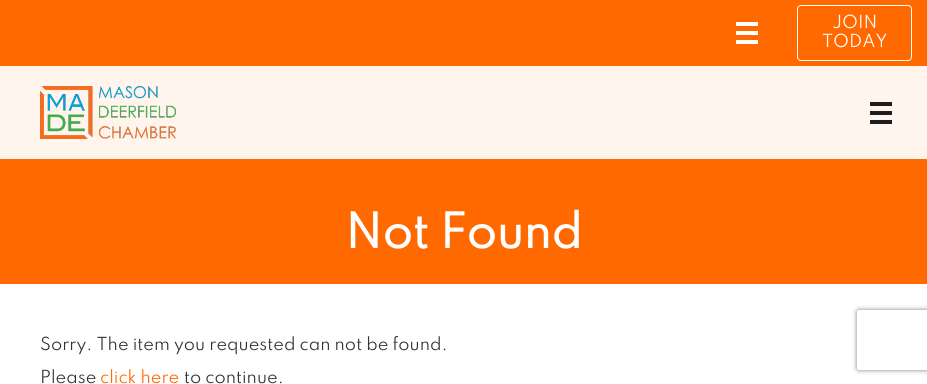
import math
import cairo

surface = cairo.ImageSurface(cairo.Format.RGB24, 927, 384)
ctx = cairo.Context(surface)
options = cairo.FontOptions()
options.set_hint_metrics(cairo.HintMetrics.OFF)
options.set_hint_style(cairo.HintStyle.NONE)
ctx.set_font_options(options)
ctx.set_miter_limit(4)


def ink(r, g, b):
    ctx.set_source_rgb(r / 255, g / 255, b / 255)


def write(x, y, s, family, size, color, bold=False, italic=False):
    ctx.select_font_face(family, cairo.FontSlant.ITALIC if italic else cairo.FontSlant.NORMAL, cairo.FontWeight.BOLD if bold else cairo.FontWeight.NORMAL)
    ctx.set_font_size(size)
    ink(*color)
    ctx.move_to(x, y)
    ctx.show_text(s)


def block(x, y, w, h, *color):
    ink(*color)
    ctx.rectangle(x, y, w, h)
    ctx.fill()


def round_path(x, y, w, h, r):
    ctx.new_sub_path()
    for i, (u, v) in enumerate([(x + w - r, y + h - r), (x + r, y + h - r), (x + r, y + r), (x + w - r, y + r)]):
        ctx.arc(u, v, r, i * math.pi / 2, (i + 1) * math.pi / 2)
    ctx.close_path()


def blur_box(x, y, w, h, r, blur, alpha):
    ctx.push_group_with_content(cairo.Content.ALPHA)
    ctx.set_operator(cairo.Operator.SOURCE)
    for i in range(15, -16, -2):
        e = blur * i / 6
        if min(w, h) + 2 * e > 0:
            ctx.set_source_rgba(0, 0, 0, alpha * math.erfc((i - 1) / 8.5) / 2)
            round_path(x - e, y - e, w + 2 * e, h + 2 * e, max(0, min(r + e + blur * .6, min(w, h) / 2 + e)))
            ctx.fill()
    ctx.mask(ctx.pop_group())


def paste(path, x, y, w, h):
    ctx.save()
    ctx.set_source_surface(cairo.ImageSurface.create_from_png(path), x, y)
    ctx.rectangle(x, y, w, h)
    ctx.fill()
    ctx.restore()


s1 = dict(family="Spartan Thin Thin", size=16, color=(255, 255, 255))
s2 = dict(family="Spartan Thin", size=43, color=(255, 255, 255), bold=True)
s3 = dict(family="Spartan Thin Thin", size=16, color=(51, 51, 51))
s4 = dict(family="Spartan Thin Thin", size=16, color=(255, 105, 0))

ink(255, 255, 255)
ctx.paint()
block(0, 0, 927, 284, 255, 105, 0)
block(736, 22, 22, 4, 255, 255, 255)
block(736, 31, 22, 4, 255, 255, 255)
block(736, 40, 22, 4, 255, 255, 255)
round_path(797.5, 5.5, 114, 55, 3.5)
ctx.set_line_width(1)
ctx.stroke()
write(832, 28, "JOIN", **s1)
write(822, 47, "TODAY", **s1)
block(0, 66, 927, 93, 255, 245, 237)
paste("pic1.png", 40, 86, 136, 53)
block(870, 102, 22, 4, 30, 30, 30)
block(870, 111, 22, 4, 30, 30, 30)
block(870, 120, 22, 4, 30, 30, 30)
write(345, 248, "Not Found", **s2)
write(40, 350, "Sorry. The item you requested can not be found.", **s3)
write(40, 383, "Please", **s3)
write(100, 383, "click here", **s4)
write(184, 383, "to continue.", **s3)
ctx.save()
ctx.set_fill_rule(cairo.FillRule.EVEN_ODD)
ctx.new_path()
ctx.move_to(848, 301)
ctx.line_to(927, 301)
ctx.line_to(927, 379)
ctx.line_to(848, 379)
ctx.close_path()
ctx.move_to(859, 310)
ctx.line_to(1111, 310)
ctx.curve_to(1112, 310, 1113, 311, 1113, 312)
ctx.line_to(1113, 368)
ctx.curve_to(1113, 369, 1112, 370, 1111, 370)
ctx.line_to(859, 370)
ctx.curve_to(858, 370, 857, 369, 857, 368)
ctx.line_to(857, 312)
ctx.curve_to(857, 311, 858, 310, 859, 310)
ctx.close_path()
ctx.clip()
ink(128, 128, 128)
blur_box(857, 310, 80, 60, 2, 2.5, 1)
ctx.restore()
surface.write_to_png("screenshot.png")
